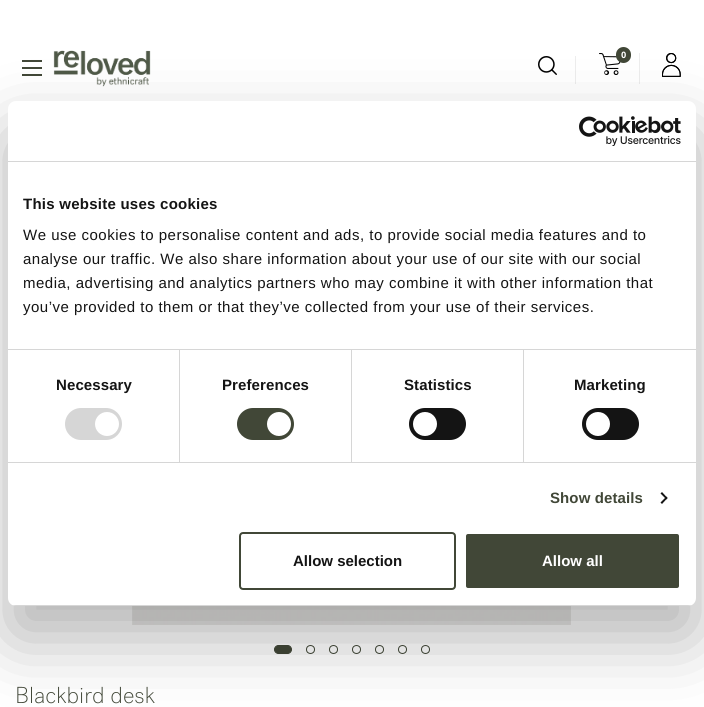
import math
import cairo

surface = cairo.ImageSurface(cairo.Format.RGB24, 704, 707)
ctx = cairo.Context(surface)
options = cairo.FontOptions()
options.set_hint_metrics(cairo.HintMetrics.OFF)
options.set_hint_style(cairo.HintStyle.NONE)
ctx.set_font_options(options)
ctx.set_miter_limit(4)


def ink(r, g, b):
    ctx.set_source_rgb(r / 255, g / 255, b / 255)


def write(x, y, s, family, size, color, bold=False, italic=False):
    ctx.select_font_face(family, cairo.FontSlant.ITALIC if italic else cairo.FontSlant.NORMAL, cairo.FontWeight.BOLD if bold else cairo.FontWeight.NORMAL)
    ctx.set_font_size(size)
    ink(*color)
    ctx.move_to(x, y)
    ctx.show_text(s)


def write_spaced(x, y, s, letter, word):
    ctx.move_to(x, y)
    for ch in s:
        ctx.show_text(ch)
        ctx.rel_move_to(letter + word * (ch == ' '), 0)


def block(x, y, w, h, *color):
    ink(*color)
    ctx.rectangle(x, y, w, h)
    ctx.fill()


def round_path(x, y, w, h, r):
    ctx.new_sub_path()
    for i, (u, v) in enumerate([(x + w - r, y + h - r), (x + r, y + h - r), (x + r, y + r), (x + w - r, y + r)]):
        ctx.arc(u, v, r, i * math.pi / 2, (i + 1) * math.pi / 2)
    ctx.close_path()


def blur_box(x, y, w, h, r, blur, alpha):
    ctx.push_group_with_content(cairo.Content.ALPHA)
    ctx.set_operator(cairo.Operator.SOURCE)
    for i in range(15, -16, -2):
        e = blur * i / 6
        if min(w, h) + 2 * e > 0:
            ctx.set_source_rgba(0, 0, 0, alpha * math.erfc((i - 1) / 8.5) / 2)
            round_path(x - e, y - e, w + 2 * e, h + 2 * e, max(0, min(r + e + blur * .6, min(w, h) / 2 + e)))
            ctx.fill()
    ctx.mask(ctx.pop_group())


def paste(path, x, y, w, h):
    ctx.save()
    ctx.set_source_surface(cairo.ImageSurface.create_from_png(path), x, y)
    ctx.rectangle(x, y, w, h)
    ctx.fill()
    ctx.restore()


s1 = dict(family="Source Sans Pro", size=10, color=(255, 255, 255), bold=True)
s2 = dict(family="Liberation Sans", size=15, color=(20, 20, 20), bold=True)
s3 = dict(family="Liberation Sans", size=15, color=(255, 255, 255), bold=True)

ink(255, 255, 255)
ctx.paint()
block(22, 60, 20, 2, 65, 71, 55)
block(22, 67, 20, 2, 65, 71, 55)
block(22, 74, 20, 2, 65, 71, 55)
paste("pic1.png", 53, 50, 98, 37)
block(575, 56, 1, 28, 237, 237, 237)
paste("pic2.png", 538, 56, 19, 19)
block(639, 53, 1, 31, 237, 237, 237)
paste("pic3.png", 599, 53, 22, 22)
ink(65, 71, 55)
round_path(616, 47, 15, 16, 7.5)
ctx.fill()
write(621, 58, "0", **s1)
paste("pic4.png", 662, 53, 19, 24)
paste("pic5.png", 662, 53, 19, 24)
paste("pic6.png", 132, 606, 439, 19)
ink(65, 71, 55)
round_path(274.5, 645.5, 17, 8, 4)
ctx.fill_preserve()
ctx.set_line_width(1)
ctx.stroke()
ctx.arc(310.5, 649.5, 4, 0, 2 * math.pi)
ctx.stroke()
ctx.arc(333.5, 649.5, 4, 0, 2 * math.pi)
ctx.stroke()
ctx.arc(356.5, 649.5, 4, 0, 2 * math.pi)
ctx.stroke()
ctx.arc(379.5, 649.5, 4, 0, 2 * math.pi)
ctx.stroke()
ctx.arc(402.5, 649.5, 4, 0, 2 * math.pi)
ctx.stroke()
ctx.arc(425.5, 649.5, 4, 0, 2 * math.pi)
ctx.stroke()
paste("pic7.png", 17, 686, 138, 18)
ink(0, 0, 0)
blur_box(8, 133, 688, 505, 8, 34, 0.3)
ink(255, 255, 255)
round_path(8, 101, 688, 505, 8)
ctx.fill()
block(8, 161, 688, 1, 214, 214, 214)
paste("pic8.png", 579, 116, 102, 30)
block(8, 349, 688, 1, 214, 214, 214)
ctx.select_font_face("Liberation Sans", cairo.FontSlant.NORMAL, cairo.FontWeight.BOLD)
ctx.set_font_size(15)
ink(20, 20, 20)
write_spaced(23, 209, "This website uses cookies", 0.25, 0)
ctx.select_font_face("Liberation Sans")
write_spaced(23, 240, "We use cookies to personalise content and ads, to provide social media features and to", 0.5, 0)
write_spaced(23, 264, "analyse our traffic. We also share information about your use of our site with our social", 0.5, 0)
write_spaced(23, 288, "media, advertising and analytics partners who may combine it with other information that", 0.5, 0)
write_spaced(23, 312, "you’ve provided to them or that they’ve collected from your use of their services.", 0.5, 0)
block(8, 462, 688, 1, 214, 214, 214)
block(179, 350, 1, 112, 214, 214, 214)
ctx.select_font_face("Liberation Sans", cairo.FontSlant.NORMAL, cairo.FontWeight.BOLD)
ink(20, 20, 20)
write_spaced(56, 390, "Necessary", 0.1, 0)
ink(214, 214, 214)
round_path(65, 408, 57, 32, 16)
ctx.fill()
ink(255, 255, 255)
ctx.arc(107, 424, 12, 0, 2 * math.pi)
ctx.fill()
block(351, 350, 1, 112, 214, 214, 214)
ink(20, 20, 20)
write_spaced(222, 390, "Preferences", 0.1, 0)
ink(65, 71, 55)
round_path(237, 408, 57, 32, 16)
ctx.fill()
ink(255, 255, 255)
ctx.arc(279, 424, 12, 0, 2 * math.pi)
ctx.fill()
block(523, 350, 1, 112, 214, 214, 214)
ink(20, 20, 20)
write_spaced(404, 390, "Statistics", 0.1, 0)
round_path(409, 408, 57, 32, 16)
ctx.fill()
ink(255, 255, 255)
ctx.arc(425, 424, 12, 0, 2 * math.pi)
ctx.fill()
ink(20, 20, 20)
write_spaced(574, 390, "Marketing", 0.1, 0)
round_path(582, 408, 57, 32, 16)
ctx.fill()
ink(255, 255, 255)
ctx.arc(598, 424, 12, 0, 2 * math.pi)
ctx.fill()
ink(65, 71, 55)
write_spaced(550, 503, "Show details", 0.1, 0)
ink(20, 20, 20)
ctx.new_path()
ctx.move_to(662, 492)
ctx.line_to(667.5, 498)
ctx.line_to(666.5, 499.5)
ctx.line_to(660.5, 493.5)
ctx.close_path()
ctx.fill()
ctx.new_path()
ctx.move_to(666.5, 496.5)
ctx.line_to(667.5, 498)
ctx.line_to(662, 504)
ctx.line_to(660.5, 502.5)
ctx.close_path()
ctx.fill()
ctx.save()
round_path(8, 101, 688, 505, 8)
ctx.clip()
block(8, 605, 688, 1, 214, 214, 214)
ctx.restore()
round_path(240, 533, 215, 56, 3)
ink(65, 71, 55)
ctx.set_line_width(2)
ctx.stroke()
write(293, 566, "Allow selection", **s2)
ink(65, 71, 55)
round_path(465, 533, 215, 56, 3)
ctx.fill_preserve()
ink(255, 255, 255)
ctx.stroke()
write(542, 566, "Allow all", **s3)
surface.write_to_png("screenshot.png")
